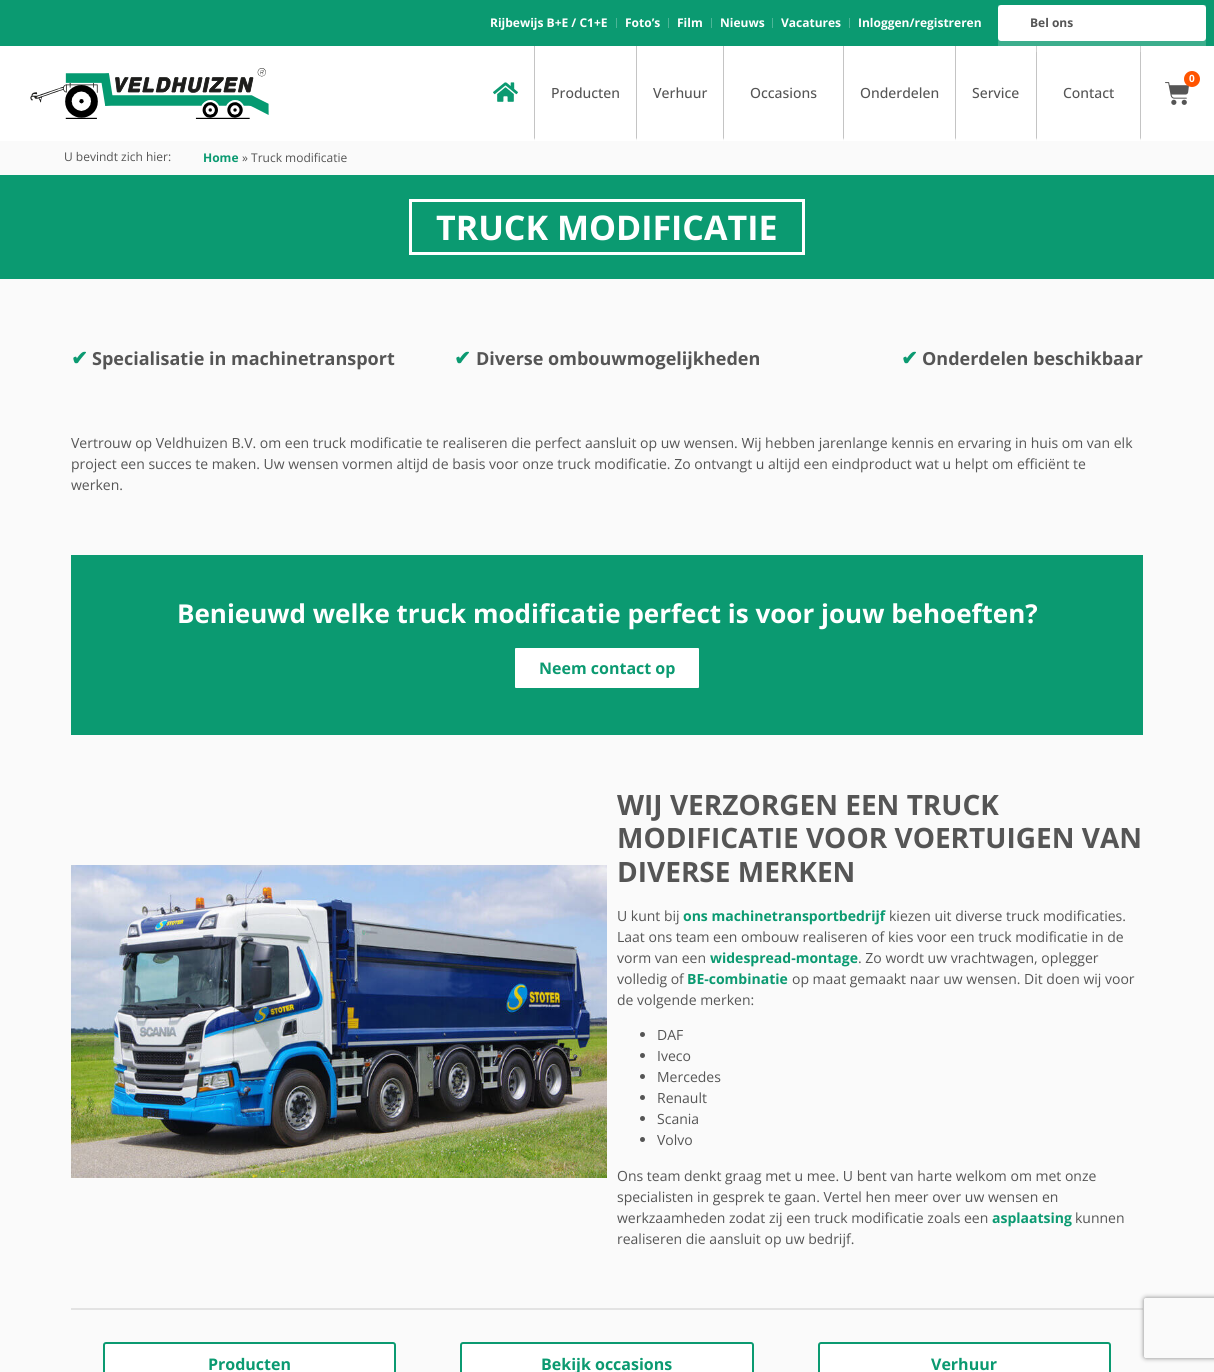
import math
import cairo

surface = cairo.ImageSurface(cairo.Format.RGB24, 1214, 1372)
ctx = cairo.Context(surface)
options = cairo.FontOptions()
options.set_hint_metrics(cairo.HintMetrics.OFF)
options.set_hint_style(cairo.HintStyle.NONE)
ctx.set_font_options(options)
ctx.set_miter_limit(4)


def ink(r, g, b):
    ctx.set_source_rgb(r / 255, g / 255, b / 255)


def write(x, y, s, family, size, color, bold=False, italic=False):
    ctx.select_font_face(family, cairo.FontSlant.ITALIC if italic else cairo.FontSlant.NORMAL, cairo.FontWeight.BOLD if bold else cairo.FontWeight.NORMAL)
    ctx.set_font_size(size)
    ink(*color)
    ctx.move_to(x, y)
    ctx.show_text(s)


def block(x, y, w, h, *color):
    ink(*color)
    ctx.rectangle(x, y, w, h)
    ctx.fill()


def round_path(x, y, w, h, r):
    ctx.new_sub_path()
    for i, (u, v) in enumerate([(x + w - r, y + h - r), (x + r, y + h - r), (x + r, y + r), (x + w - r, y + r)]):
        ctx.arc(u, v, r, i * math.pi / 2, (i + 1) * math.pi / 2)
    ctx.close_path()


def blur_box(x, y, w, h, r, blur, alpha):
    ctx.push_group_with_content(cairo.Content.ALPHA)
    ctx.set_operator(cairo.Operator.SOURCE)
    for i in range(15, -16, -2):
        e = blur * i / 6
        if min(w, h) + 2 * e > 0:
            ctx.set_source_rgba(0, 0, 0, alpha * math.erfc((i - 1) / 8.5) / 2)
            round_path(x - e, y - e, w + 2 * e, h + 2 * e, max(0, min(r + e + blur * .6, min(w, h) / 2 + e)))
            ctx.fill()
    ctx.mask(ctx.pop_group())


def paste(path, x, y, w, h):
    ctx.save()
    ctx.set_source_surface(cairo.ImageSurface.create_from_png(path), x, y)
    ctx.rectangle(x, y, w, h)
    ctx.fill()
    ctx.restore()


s1 = dict(family="Open Sans", size=12, color=(255, 255, 255), bold=True)
s2 = dict(family="Open Sans", size=12, color=(85, 85, 85), bold=True)
s3 = dict(family="Open Sans", size=10, color=(255, 255, 255), bold=True)
s4 = dict(family="Open Sans Medium", size=14, color=(85, 85, 85))
s5 = dict(family="Open Sans", size=12, color=(85, 85, 85))
s6 = dict(family="Open Sans", size=12, color=(11, 154, 113), bold=True)
s7 = dict(family="Open Sans", size=34, color=(255, 255, 255), bold=True)
s8 = dict(family="DejaVu Sans", size=20, color=(11, 154, 113), bold=True)
s9 = dict(family="Open Sans", size=18, color=(85, 85, 85), bold=True)
s10 = dict(family="Open Sans", size=14, color=(85, 85, 85))
s11 = dict(family="Open Sans", size=26, color=(255, 255, 255), bold=True)
s12 = dict(family="Open Sans", size=16, color=(11, 154, 113), bold=True)
s13 = dict(family="Open Sans", size=28, color=(85, 85, 85), bold=True)
s14 = dict(family="Open Sans", size=14, color=(11, 154, 113), bold=True)

ink(250, 250, 250)
ctx.paint()
block(0, 0, 1214, 46, 11, 154, 113)
write(490, 27, "Rijbewijs B+E / C1+E", **s1)
block(616, 18, 1, 10, 76, 181, 151)
write(625, 27, "Foto’s", **s1)
block(668, 18, 1, 10, 76, 181, 151)
write(677, 27, "Film", **s1)
block(711, 18, 1, 10, 76, 181, 151)
write(720, 27, "Nieuws", **s1)
block(772, 18, 1, 10, 76, 181, 151)
write(781, 27, "Vacatures", **s1)
block(849, 18, 1, 10, 76, 181, 151)
write(858, 27, "Inloggen/registreren", **s1)
block(0, 46, 1214, 95, 255, 255, 255)
ink(196, 196, 196)
ctx.new_path()
ctx.move_to(1037, 46)
ctx.line_to(1037, 141)
ctx.line_to(1036, 138)
ctx.line_to(1036, 46)
ctx.close_path()
ctx.fill()
ctx.new_path()
ctx.move_to(1141, 46)
ctx.line_to(1141, 141)
ctx.line_to(1140, 138)
ctx.line_to(1140, 46)
ctx.close_path()
ctx.fill()
ctx.set_source_rgba(1, 1, 1, 0.2)
ctx.new_path()
ctx.move_to(998, 5)
ctx.line_to(1206, 5)
ctx.line_to(1206, 51)
ctx.curve_to(1206, 52, 1202, 52, 1198, 52)
ctx.line_to(1006, 52)
ctx.curve_to(1002, 52, 998, 52, 998, 51)
ctx.close_path()
ctx.fill()
ink(255, 255, 255)
round_path(998, 5, 208, 36, 3)
ctx.fill()
write(1030, 27, "Bel ons", **s2)
paste("pic1.png", 30, 68, 239, 51)
paste("pic2.png", 1165, 82, 24, 23)
ink(255, 84, 0)
ctx.arc(1192, 79, 8, 0, 2 * math.pi)
ctx.fill()
write(1189, 82, "0", **s3)
ink(196, 196, 196)
ctx.new_path()
ctx.move_to(535, 46)
ctx.line_to(535, 141)
ctx.line_to(534, 138)
ctx.line_to(534, 46)
ctx.close_path()
ctx.fill()
ink(255, 255, 255)
ctx.new_path()
ctx.move_to(535, 141)
ctx.line_to(477, 141)
ctx.line_to(477, 138)
ctx.line_to(534, 138)
ctx.close_path()
ctx.fill()
paste("pic3.png", 493, 82, 25, 20)
ink(196, 196, 196)
ctx.new_path()
ctx.move_to(637, 46)
ctx.line_to(637, 141)
ctx.line_to(636, 138)
ctx.line_to(636, 46)
ctx.close_path()
ctx.fill()
ink(255, 255, 255)
ctx.new_path()
ctx.move_to(637, 141)
ctx.line_to(535, 141)
ctx.line_to(535, 138)
ctx.line_to(636, 138)
ctx.close_path()
ctx.fill()
write(551, 98, "Producten", **s4)
ink(196, 196, 196)
ctx.new_path()
ctx.move_to(724, 46)
ctx.line_to(724, 141)
ctx.line_to(723, 138)
ctx.line_to(723, 46)
ctx.close_path()
ctx.fill()
ink(255, 255, 255)
ctx.new_path()
ctx.move_to(724, 141)
ctx.line_to(637, 141)
ctx.line_to(637, 138)
ctx.line_to(723, 138)
ctx.close_path()
ctx.fill()
write(653, 98, "Verhuur", **s4)
ink(196, 196, 196)
ctx.new_path()
ctx.move_to(844, 46)
ctx.line_to(844, 141)
ctx.line_to(843, 138)
ctx.line_to(843, 46)
ctx.close_path()
ctx.fill()
ink(255, 255, 255)
ctx.new_path()
ctx.move_to(844, 141)
ctx.line_to(724, 141)
ctx.line_to(724, 138)
ctx.line_to(843, 138)
ctx.close_path()
ctx.fill()
write(750, 98, "Occasions", **s4)
ink(196, 196, 196)
ctx.new_path()
ctx.move_to(956, 46)
ctx.line_to(956, 141)
ctx.line_to(955, 138)
ctx.line_to(955, 46)
ctx.close_path()
ctx.fill()
ink(255, 255, 255)
ctx.new_path()
ctx.move_to(956, 141)
ctx.line_to(844, 141)
ctx.line_to(844, 138)
ctx.line_to(955, 138)
ctx.close_path()
ctx.fill()
write(860, 98, "Onderdelen", **s4)
ink(255, 255, 255)
ctx.new_path()
ctx.move_to(1037, 141)
ctx.line_to(956, 141)
ctx.line_to(956, 138)
ctx.line_to(1036, 138)
ctx.close_path()
ctx.fill()
write(972, 98, "Service", **s4)
ink(255, 255, 255)
ctx.new_path()
ctx.move_to(1141, 141)
ctx.line_to(1037, 141)
ctx.line_to(1037, 138)
ctx.line_to(1140, 138)
ctx.close_path()
ctx.fill()
write(1063, 98, "Contact", **s4)
write(64, 161, "U bevindt zich hier:", **s5)
write(203, 162, "Home", **s6)
write(242, 162, "» Truck modificatie", **s5)
block(0, 175, 1214, 104, 11, 154, 113)
ctx.rectangle(410.5, 200.5, 393, 53)
ink(255, 255, 255)
ctx.set_line_width(3)
ctx.stroke()
write(436, 240, "TRUCK MODIFICATIE", **s7)
write(71, 365, "✔", **s8)
write(92, 365, "Specialisatie in machinetransport", **s9)
write(454, 365, "✔", **s8)
write(476, 365, "Diverse ombouwmogelijkheden", **s9)
write(901, 365, "✔", **s8)
write(922, 365, "Onderdelen beschikbaar", **s9)
write(71, 448, "Vertrouw op Veldhuizen B.V. om een truck modificatie te realiseren die perfect aansluit op uw wensen. Wij hebben jarenlange kennis en ervaring in huis om van elk", **s10)
write(71, 469, "project een succes te maken. Uw wensen vormen altijd de basis voor onze truck modificatie. Zo ontvangt u altijd een eindproduct wat u helpt om efficiënt te", **s10)
write(71, 490, "werken.", **s10)
block(71, 555, 1072, 180, 11, 154, 113)
write(177, 623, "Benieuwd welke truck modificatie perfect is voor jouw behoeften?", **s11)
round_path(514, 647, 186, 42, 2)
ctx.fill_preserve()
ink(11, 154, 113)
ctx.set_line_width(2)
ctx.stroke()
write(539, 674, "Neem contact op", **s12)
paste("pic4.png", 71, 865, 536, 313)
write(617, 815, "WIJ VERZORGEN EEN TRUCK", **s13)
write(617, 848, "MODIFICATIE VOOR VOERTUIGEN VAN", **s13)
write(617, 882, "DIVERSE MERKEN", **s13)
write(617, 921, "U kunt bij", **s10)
write(683, 921, "ons machinetransportbedrijf", **s14)
write(889, 921, "kiezen uit diverse truck modificaties.", **s10)
write(617, 942, "Laat ons team een ombouw realiseren of kies voor een truck modificatie in de", **s10)
write(617, 963, "vorm van een", **s10)
write(710, 963, "widespread-montage", **s14)
write(858, 963, ". Zo wordt uw vrachtwagen, oplegger", **s10)
write(617, 984, "volledig of", **s10)
write(687, 984, "BE-combinatie", **s14)
write(792, 984, "op maat gemaakt naar uw wensen. Dit doen wij voor", **s10)
write(617, 1005, "de volgende merken:", **s10)
ctx.new_path()
ctx.arc(642.5, 1034.5, 2.5, 0, 2 * math.pi)
ctx.fill()
write(657, 1040, "DAF", **s10)
ctx.new_path()
ctx.arc(642.5, 1055.5, 2.5, 0, 2 * math.pi)
ctx.fill()
write(657, 1061, "Iveco", **s10)
ctx.new_path()
ctx.arc(642.5, 1076.5, 2.5, 0, 2 * math.pi)
ctx.fill()
write(657, 1082, "Mercedes", **s10)
ctx.new_path()
ctx.arc(642.5, 1097.5, 2.5, 0, 2 * math.pi)
ctx.fill()
write(657, 1103, "Renault", **s10)
ctx.new_path()
ctx.arc(642.5, 1118.5, 2.5, 0, 2 * math.pi)
ctx.fill()
write(657, 1124, "Scania", **s10)
ctx.new_path()
ctx.arc(642.5, 1139.5, 2.5, 0, 2 * math.pi)
ctx.fill()
write(657, 1145, "Volvo", **s10)
write(617, 1181, "Ons team denkt graag met u mee. U bent van harte welkom om met onze", **s10)
write(617, 1202, "specialisten in gesprek te gaan. Vertel hen meer over uw wensen en", **s10)
write(617, 1223, "werkzaamheden zodat zij een truck modificatie zoals een", **s10)
write(992, 1223, "asplaatsing", **s14)
write(1075, 1223, "kunnen", **s10)
write(617, 1244, "realiseren die aansluit op uw bedrijf.", **s10)
block(71, 1308, 1072, 2, 227, 227, 227)
ink(255, 255, 255)
round_path(104, 1343, 291, 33, 2)
ctx.fill_preserve()
ink(11, 154, 113)
ctx.stroke()
write(208, 1370, "Producten", **s12)
ink(255, 255, 255)
round_path(461, 1343, 292, 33, 2)
ctx.fill_preserve()
ink(11, 154, 113)
ctx.stroke()
write(541, 1370, "Bekijk occasions", **s12)
ink(255, 255, 255)
round_path(819, 1343, 291, 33, 2)
ctx.fill_preserve()
ink(11, 154, 113)
ctx.stroke()
write(931, 1370, "Verhuur", **s12)
ctx.save()
ctx.set_fill_rule(cairo.FillRule.EVEN_ODD)
ctx.new_path()
ctx.move_to(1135, 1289)
ctx.line_to(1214, 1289)
ctx.line_to(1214, 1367)
ctx.line_to(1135, 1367)
ctx.close_path()
ctx.move_to(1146, 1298)
ctx.line_to(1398, 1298)
ctx.curve_to(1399, 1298, 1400, 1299, 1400, 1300)
ctx.line_to(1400, 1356)
ctx.curve_to(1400, 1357, 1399, 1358, 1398, 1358)
ctx.line_to(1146, 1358)
ctx.curve_to(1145, 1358, 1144, 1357, 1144, 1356)
ctx.line_to(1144, 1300)
ctx.curve_to(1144, 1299, 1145, 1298, 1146, 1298)
ctx.close_path()
ctx.clip()
ink(128, 128, 128)
blur_box(1144, 1298, 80, 60, 2, 2.5, 1)
ctx.restore()
surface.write_to_png("screenshot.png")
